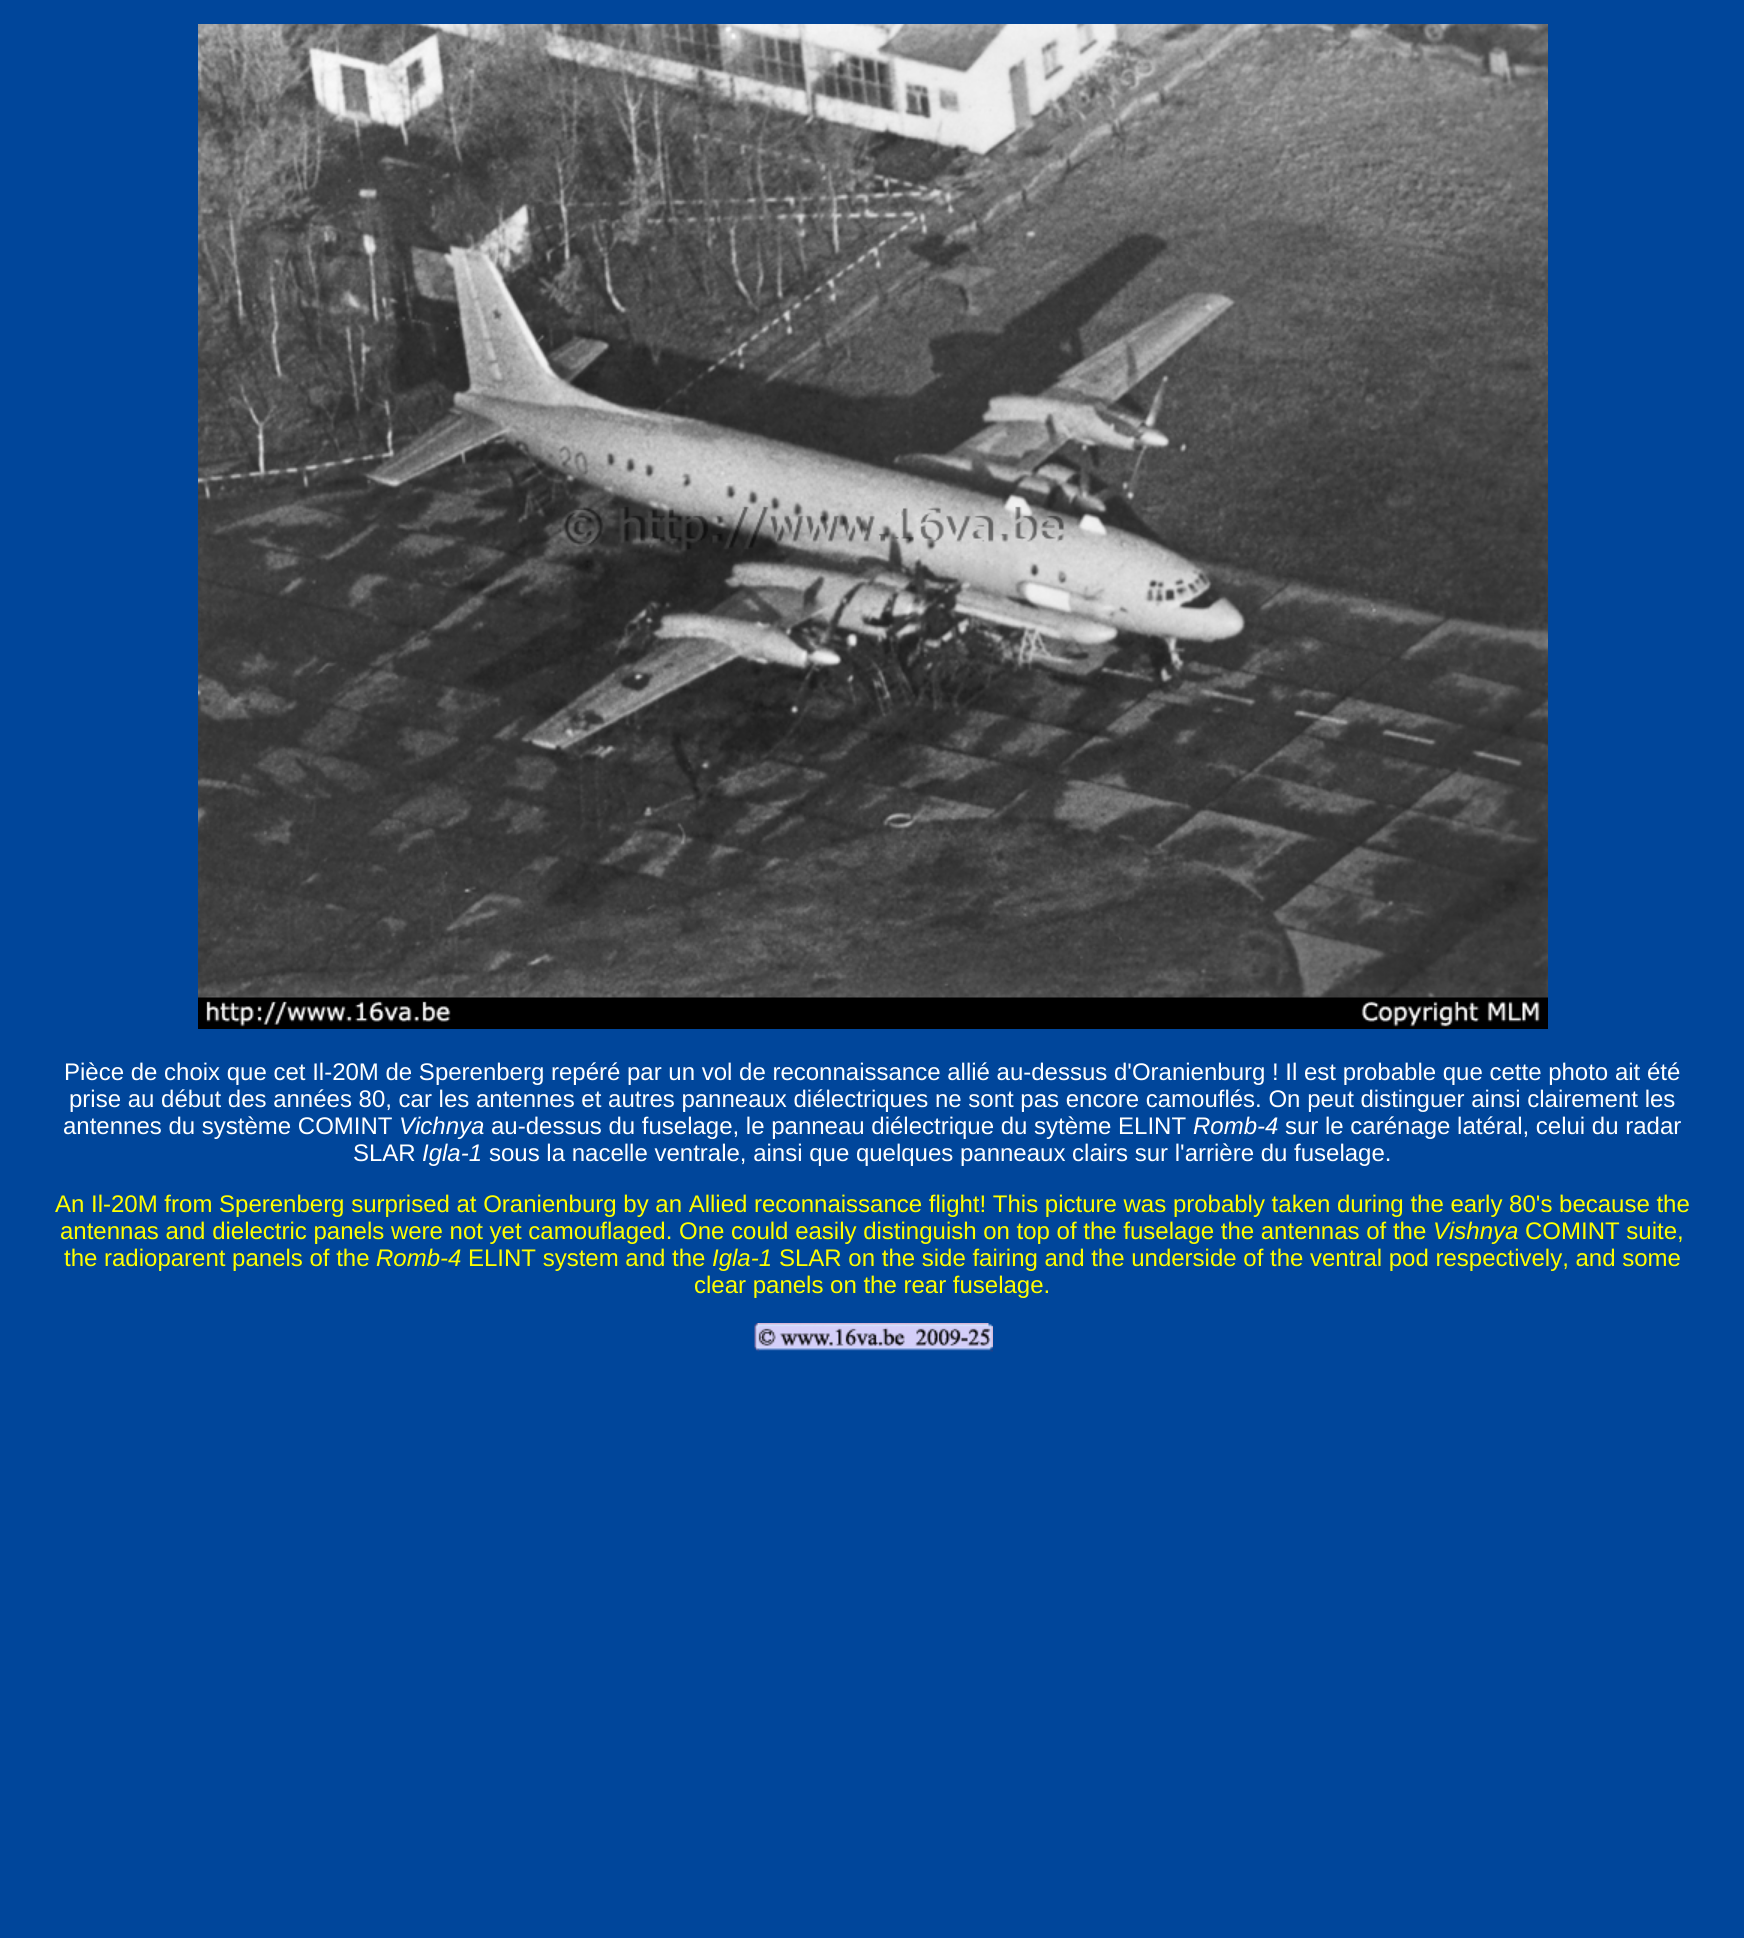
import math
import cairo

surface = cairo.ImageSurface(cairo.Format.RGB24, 1744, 1938)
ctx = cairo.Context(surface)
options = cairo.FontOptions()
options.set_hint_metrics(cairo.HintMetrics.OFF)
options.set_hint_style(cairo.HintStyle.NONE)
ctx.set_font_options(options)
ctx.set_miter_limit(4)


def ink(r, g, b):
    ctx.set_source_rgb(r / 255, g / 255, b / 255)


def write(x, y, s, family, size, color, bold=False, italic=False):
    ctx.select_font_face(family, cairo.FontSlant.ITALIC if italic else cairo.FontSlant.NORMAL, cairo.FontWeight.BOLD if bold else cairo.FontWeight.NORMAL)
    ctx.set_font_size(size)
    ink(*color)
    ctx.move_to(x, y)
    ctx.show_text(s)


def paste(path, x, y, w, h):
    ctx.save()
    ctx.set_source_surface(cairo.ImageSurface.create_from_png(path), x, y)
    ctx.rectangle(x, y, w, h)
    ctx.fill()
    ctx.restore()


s1 = dict(family="Liberation Sans", size=24, color=(255, 255, 255))
s2 = dict(family="Liberation Sans", size=24, color=(255, 255, 255), italic=True)
s3 = dict(family="Liberation Sans", size=24, color=(255, 255, 0))
s4 = dict(family="Liberation Sans", size=24, color=(255, 255, 0), italic=True)

ink(0, 70, 155)
ctx.paint()
paste("pic1.png", 198, 24, 1350, 1005)
write(64, 1080, "Pièce de choix que cet Il-20M de Sperenberg repéré par un vol de reconnaissance allié au-dessus d'Oranienburg ! Il est probable que cette photo ait été", **s1)
write(69, 1107, "prise au début des années 80, car les antennes et autres panneaux diélectriques ne sont pas encore camouflés. On peut distinguer ainsi clairement les", **s1)
write(63, 1134, "antennes du système COMINT", **s1)
write(399, 1134, "Vichnya", **s2)
write(491, 1134, "au-dessus du fuselage, le panneau diélectrique du sytème ELINT", **s1)
write(1193, 1134, "Romb-4", **s2)
write(1285, 1134, "sur le carénage latéral, celui du radar", **s1)
write(353, 1161, "SLAR", **s1)
write(422, 1161, "Igla-1", **s2)
write(489, 1161, "sous la nacelle ventrale, ainsi que quelques panneaux clairs sur l'arrière du fuselage.", **s1)
write(55, 1212, "An Il-20M from Sperenberg surprised at Oranienburg by an Allied reconnaissance flight! This picture was probably taken during the early 80's because the", **s3)
write(60, 1239, "antennas and dielectric panels were not yet camouflaged. One could easily distinguish on top of the fuselage the antennas of the", **s3)
write(1433, 1239, "Vishnya", **s4)
write(1525, 1239, "COMINT suite,", **s3)
write(64, 1266, "the radioparent panels of the", **s3)
write(376, 1266, "Romb-4", **s4)
write(468, 1266, "ELINT system and the", **s3)
write(712, 1266, "Igla-1", **s4)
write(779, 1266, "SLAR on the side fairing and the underside of the ventral pod respectively, and some", **s3)
write(694, 1293, "clear panels on the rear fuselage.", **s3)
paste("pic2.png", 754, 1323, 239, 29)
surface.write_to_png("screenshot.png")
